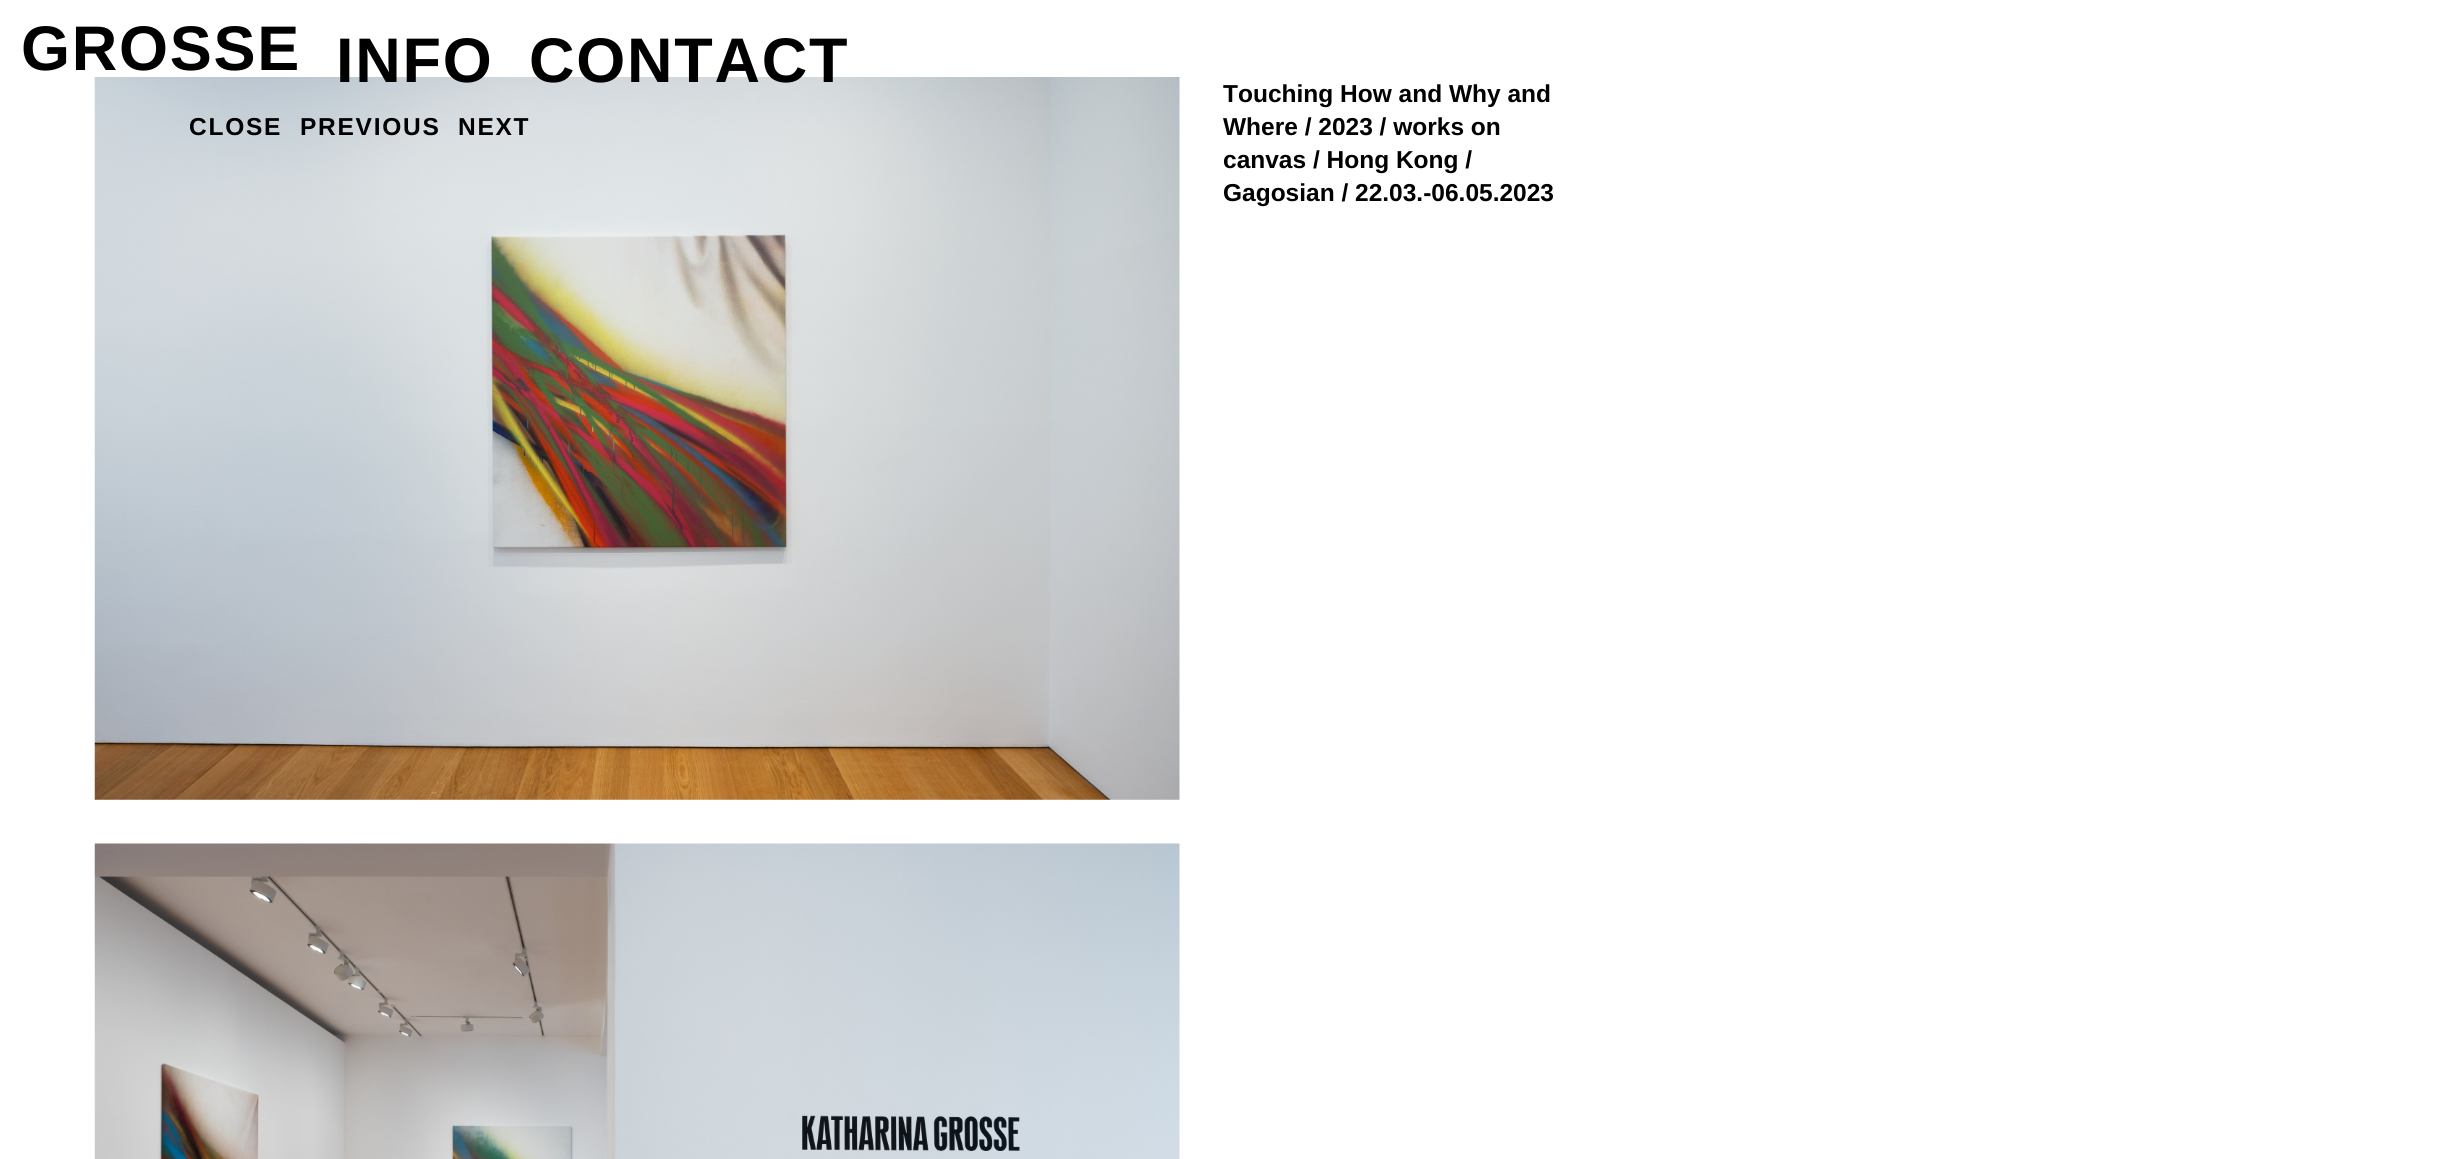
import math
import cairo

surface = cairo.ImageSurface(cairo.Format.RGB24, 2452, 1159)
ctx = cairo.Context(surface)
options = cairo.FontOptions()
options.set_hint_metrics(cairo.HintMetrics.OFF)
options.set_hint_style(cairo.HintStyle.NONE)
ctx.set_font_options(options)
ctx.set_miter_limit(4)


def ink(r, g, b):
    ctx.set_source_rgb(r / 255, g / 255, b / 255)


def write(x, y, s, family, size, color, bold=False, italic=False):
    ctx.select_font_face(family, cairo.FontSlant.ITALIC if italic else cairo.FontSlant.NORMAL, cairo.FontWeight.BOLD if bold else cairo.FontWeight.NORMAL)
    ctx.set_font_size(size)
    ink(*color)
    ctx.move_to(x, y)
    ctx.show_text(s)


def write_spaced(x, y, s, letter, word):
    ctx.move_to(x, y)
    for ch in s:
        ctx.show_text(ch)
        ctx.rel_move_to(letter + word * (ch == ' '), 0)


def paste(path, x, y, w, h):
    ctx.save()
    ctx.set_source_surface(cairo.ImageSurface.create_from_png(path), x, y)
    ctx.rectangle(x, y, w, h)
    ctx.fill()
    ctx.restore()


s1 = dict(family="Liberation Sans", size=24.5, color=(0, 0, 0), bold=True)

ink(255, 255, 255)
ctx.paint()
ctx.select_font_face("Liberation Sans", cairo.FontSlant.NORMAL, cairo.FontWeight.BOLD)
ctx.set_font_size(63)
ink(0, 0, 0)
write_spaced(21, 70, "GROSSE", 1.75, 0)
paste("pic1.png", 94, 77, 1086, 723)
write_spaced(336, 82, "INFO", 1.75, 0)
write_spaced(529, 82, "CONTACT", 1.75, 0)
paste("pic2.png", 94, 843, 1086, 316)
write(1223, 102, "Touching How and Why and", **s1)
write(1223, 135, "Where / 2023 / works on", **s1)
write(1223, 168, "canvas / Hong Kong /", **s1)
write(1223, 201, "Gagosian / 22.03.-06.05.2023", **s1)
write_spaced(189, 135, "CLOSE", 1.75, 0)
write_spaced(300, 135, "PREVIOUS", 1.75, 0)
write_spaced(458, 135, "NEXT", 1.75, 0)
surface.write_to_png("screenshot.png")
